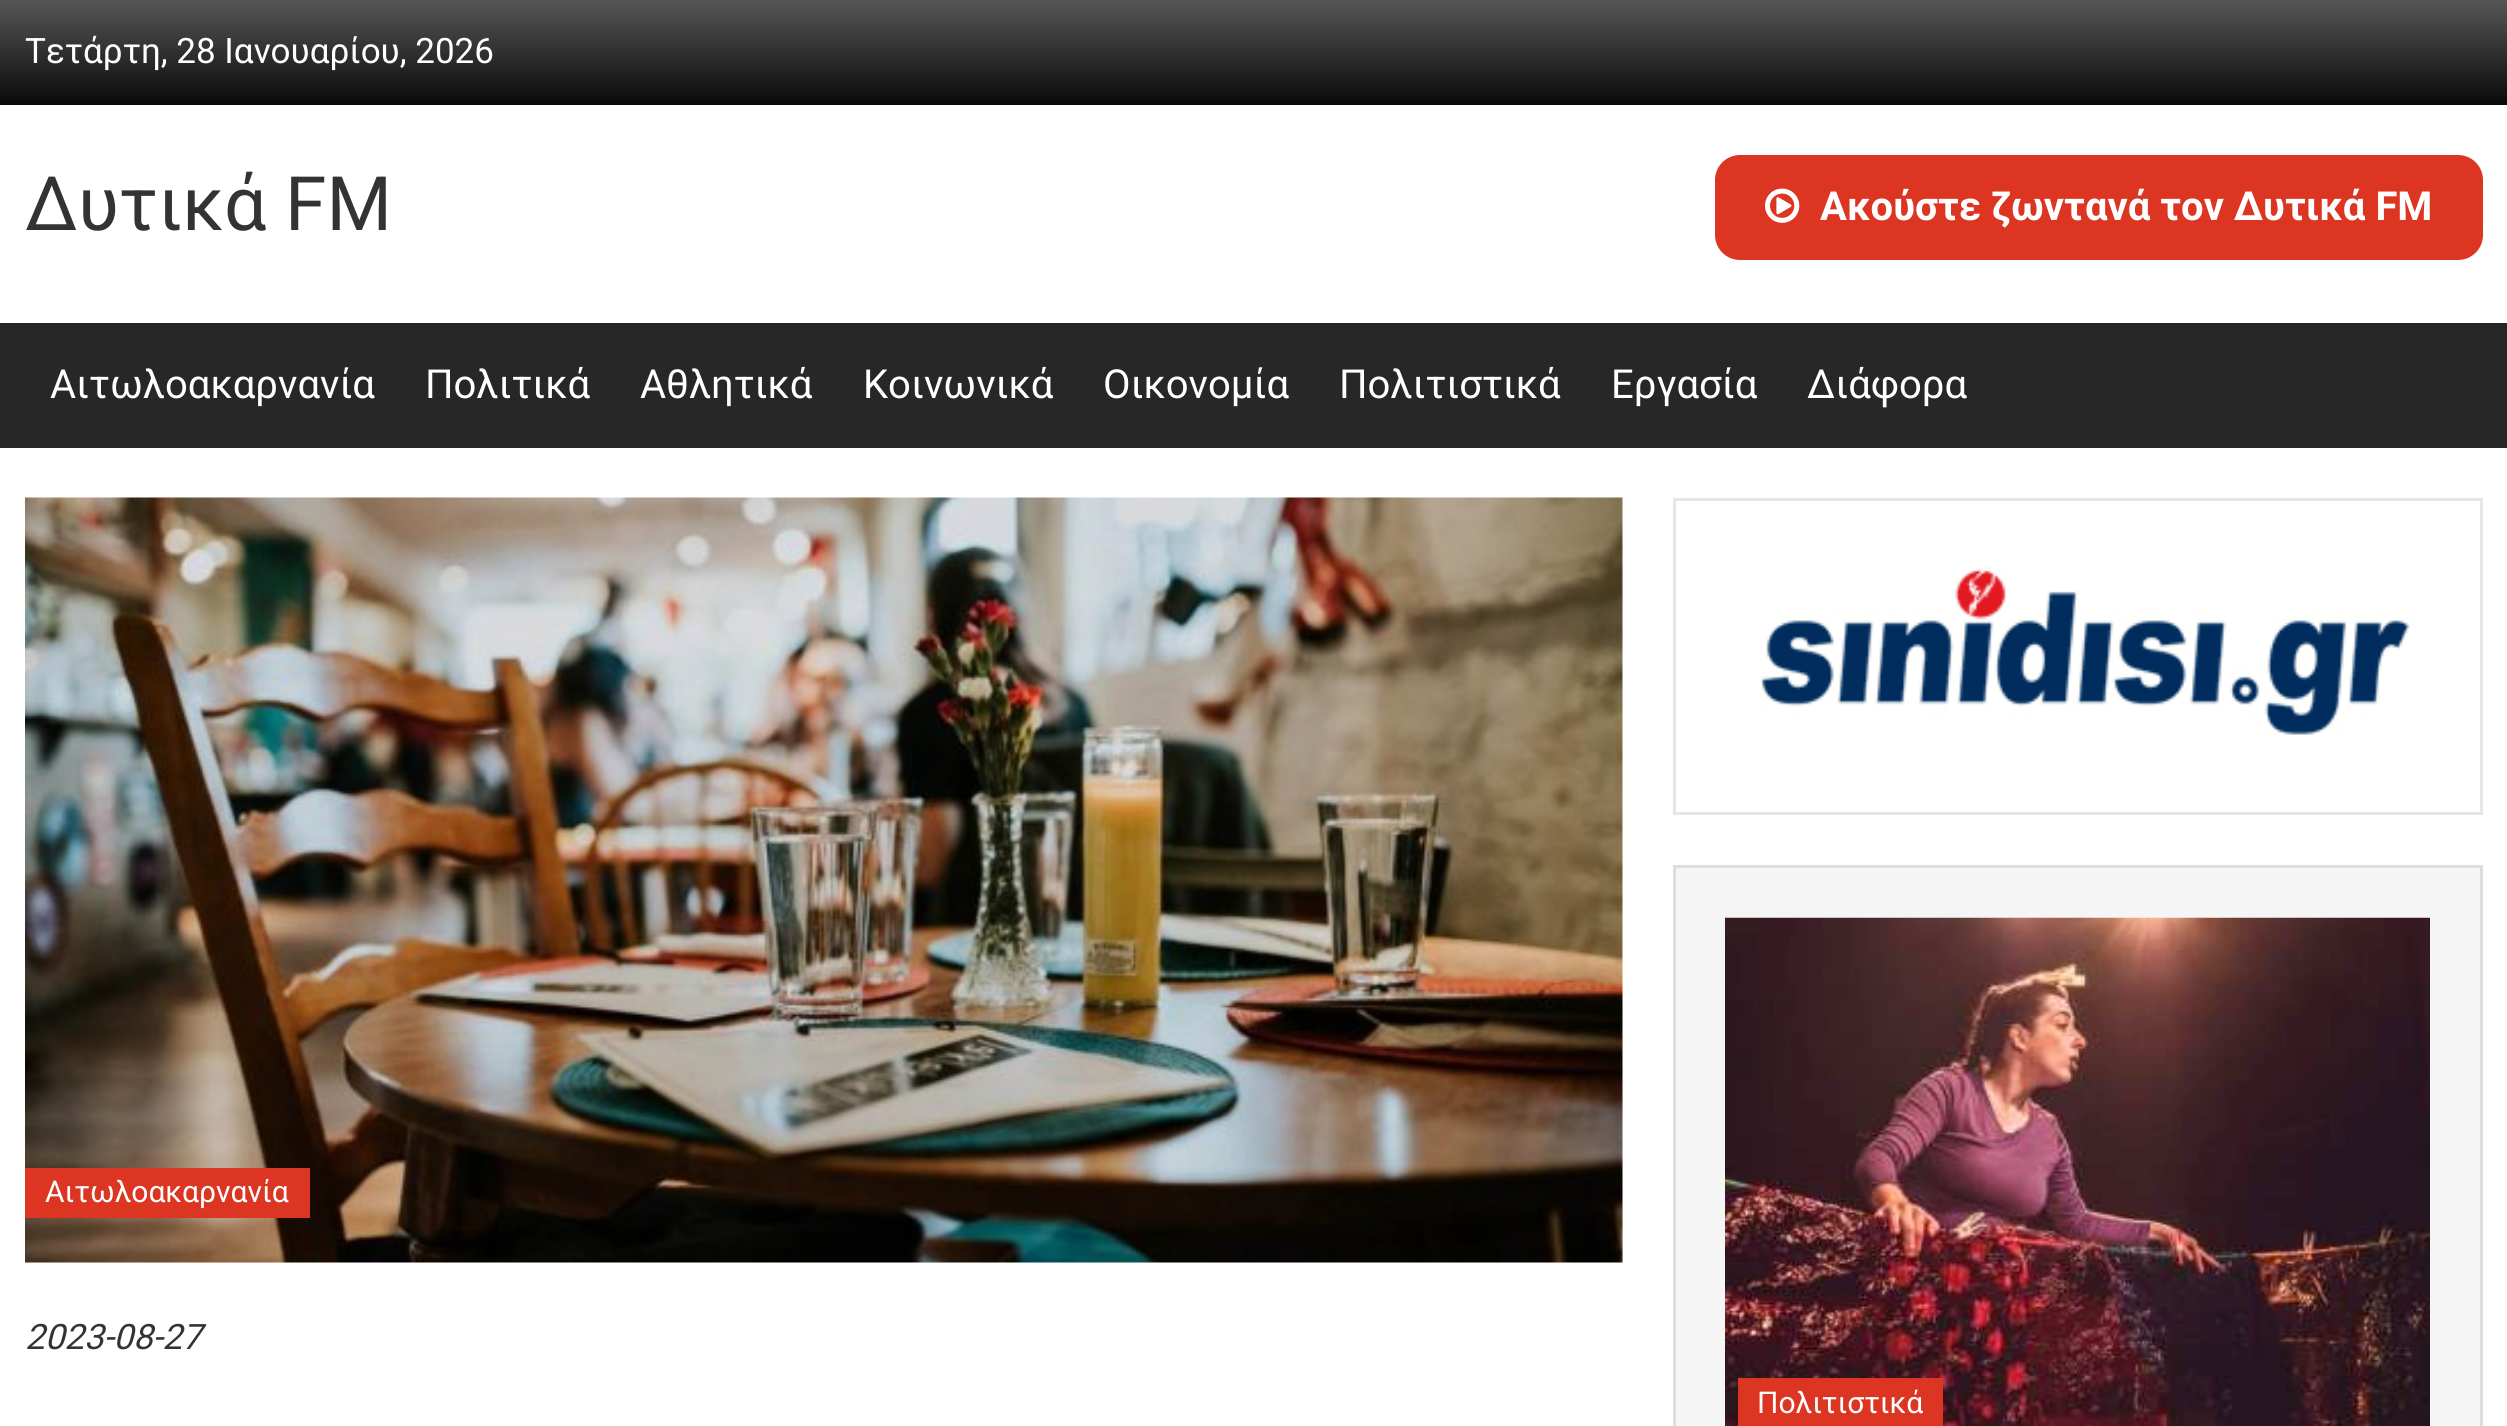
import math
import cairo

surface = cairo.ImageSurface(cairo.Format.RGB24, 2507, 1426)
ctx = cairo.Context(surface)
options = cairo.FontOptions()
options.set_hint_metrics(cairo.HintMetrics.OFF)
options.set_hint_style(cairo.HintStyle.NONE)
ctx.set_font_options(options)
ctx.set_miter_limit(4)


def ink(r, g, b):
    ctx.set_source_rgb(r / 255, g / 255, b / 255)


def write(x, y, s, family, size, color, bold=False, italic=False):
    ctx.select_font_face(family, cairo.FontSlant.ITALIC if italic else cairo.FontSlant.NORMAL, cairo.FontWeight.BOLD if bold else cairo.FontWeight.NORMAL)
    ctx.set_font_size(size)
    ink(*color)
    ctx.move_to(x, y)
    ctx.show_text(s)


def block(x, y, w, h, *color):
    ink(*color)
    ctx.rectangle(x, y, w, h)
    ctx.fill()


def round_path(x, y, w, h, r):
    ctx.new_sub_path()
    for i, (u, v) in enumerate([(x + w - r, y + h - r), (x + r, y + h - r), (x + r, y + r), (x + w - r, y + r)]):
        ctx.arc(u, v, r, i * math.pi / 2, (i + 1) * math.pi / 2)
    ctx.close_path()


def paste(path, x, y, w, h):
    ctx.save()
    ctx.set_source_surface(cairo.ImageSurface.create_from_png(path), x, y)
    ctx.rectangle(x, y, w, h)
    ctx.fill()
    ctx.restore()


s1 = dict(family="Roboto", size=35, color=(255, 255, 255))
s2 = dict(family="Roboto", size=75, color=(51, 51, 51))
s3 = dict(family="Roboto", size=40, color=(255, 255, 255), bold=True)
s4 = dict(family="Roboto", size=40, color=(255, 255, 255))
s5 = dict(family="Roboto", size=30, color=(255, 255, 255))
s6 = dict(family="Roboto", size=35, color=(51, 51, 51), italic=True)

ink(255, 255, 255)
ctx.paint()
gradient = cairo.LinearGradient(1254, 0, 1254, 105)
gradient.add_color_stop_rgba(0, 0.337, 0.337, 0.337, 1)
gradient.add_color_stop_rgba(1, 0.039, 0.039, 0.039, 1)
ctx.set_source(gradient)
ctx.rectangle(0, 0, 2507, 105)
ctx.fill()
write(25, 63, "Τετάρτη, 28 Ιανουαρίου, 2026", **s1)
write(25, 230, "Δυτικά FM", **s2)
ink(220, 53, 34)
round_path(1716.5, 156.5, 765, 102, 23.5)
ctx.fill_preserve()
ctx.set_line_width(3)
ctx.stroke()
paste("pic1.png", 1765, 188, 35, 35)
write(1820, 220, "Ακούστε ζωντανά τον Δυτικά FM", **s3)
block(0, 323, 2507, 125, 39, 39, 39)
write(50, 398, "Αιτωλοακαρνανία", **s4)
write(425, 398, "Πολιτικά", **s4)
write(640, 398, "Αθλητικά", **s4)
write(863, 398, "Κοινωνικά", **s4)
write(1103, 398, "Οικονομία", **s4)
write(1339, 398, "Πολιτιστικά", **s4)
write(1611, 398, "Εργασία", **s4)
write(1807, 398, "Διάφορα", **s4)
paste("pic2.png", 25, 497, 1598, 766)
block(25, 1168, 285, 50, 220, 53, 34)
write(45, 1202, "Αιτωλοακαρνανία", **s5)
write(25, 1349, "2023-08-27", **s6)
ctx.rectangle(1674.5, 499.5, 807, 314)
ink(230, 230, 230)
ctx.stroke()
paste("pic3.png", 1760, 567, 650, 168)
ink(245, 245, 245)
ctx.rectangle(1674.5, 866.5, 807, 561)
ctx.fill_preserve()
ink(221, 221, 221)
ctx.stroke()
paste("pic4.png", 1725, 917, 705, 509)
block(1738, 1378, 205, 48, 220, 53, 34)
write(1757, 1413, "Πολιτιστικά", **s5)
surface.write_to_png("screenshot.png")
